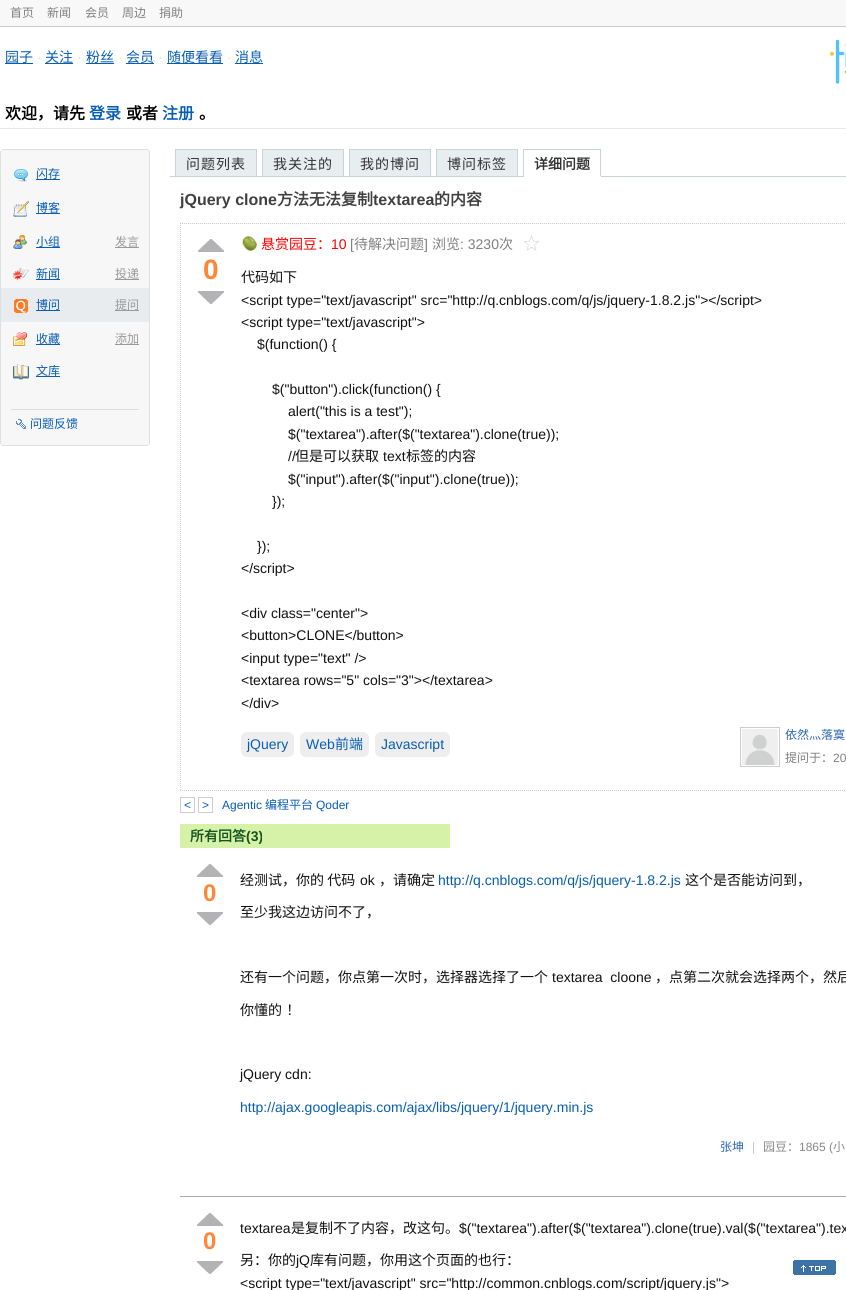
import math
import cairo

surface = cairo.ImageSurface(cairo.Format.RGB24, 846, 1290)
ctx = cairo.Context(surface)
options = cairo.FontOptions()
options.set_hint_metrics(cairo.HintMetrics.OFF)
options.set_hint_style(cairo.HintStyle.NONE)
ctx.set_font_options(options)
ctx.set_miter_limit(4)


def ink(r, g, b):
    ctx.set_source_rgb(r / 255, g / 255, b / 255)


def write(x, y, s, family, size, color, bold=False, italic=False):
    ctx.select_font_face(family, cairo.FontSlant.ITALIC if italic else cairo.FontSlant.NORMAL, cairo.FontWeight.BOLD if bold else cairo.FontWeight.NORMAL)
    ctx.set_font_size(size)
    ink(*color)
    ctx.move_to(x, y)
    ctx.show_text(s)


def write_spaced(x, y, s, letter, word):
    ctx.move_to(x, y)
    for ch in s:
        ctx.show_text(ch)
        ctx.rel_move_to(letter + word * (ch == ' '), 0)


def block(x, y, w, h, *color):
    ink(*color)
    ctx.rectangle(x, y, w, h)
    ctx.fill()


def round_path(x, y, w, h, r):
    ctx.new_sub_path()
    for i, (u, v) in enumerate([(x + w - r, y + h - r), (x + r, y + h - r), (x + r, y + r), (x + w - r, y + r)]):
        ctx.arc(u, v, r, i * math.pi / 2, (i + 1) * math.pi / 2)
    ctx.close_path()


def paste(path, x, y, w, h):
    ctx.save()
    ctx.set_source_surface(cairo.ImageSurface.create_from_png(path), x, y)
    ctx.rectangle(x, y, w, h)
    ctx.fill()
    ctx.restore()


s1 = dict(family="Noto Sans CJK SC", size=12, color=(128, 128, 128))
s2 = dict(family="Noto Sans CJK SC", size=14, color=(7, 93, 179))
s3 = dict(family="Liberation Sans", size=14, color=(223, 223, 223))
s4 = dict(family="Noto Sans CJK SC", size=16, color=(0, 0, 0), bold=True)
s5 = dict(family="Noto Sans CJK SC", size=16, color=(7, 93, 179), bold=True)
s6 = dict(family="Noto Sans CJK SC", size=12, color=(7, 93, 179))
s7 = dict(family="Noto Sans CJK SC", size=12, color=(153, 153, 153))
s8 = dict(family="Noto Sans CJK SC", size=14, color=(51, 51, 51), bold=True)
s9 = dict(family="Liberation Sans", size=16, color=(64, 64, 64), bold=True)
s10 = dict(family="Noto Sans CJK SC", size=16, color=(64, 64, 64), bold=True)
s11 = dict(family="Liberation Sans", size=28, color=(255, 134, 53), bold=True)
s12 = dict(family="Noto Sans CJK SC", size=14, color=(255, 0, 0))
s13 = dict(family="Liberation Sans", size=14, color=(255, 0, 0))
s14 = dict(family="Liberation Sans", size=14, color=(128, 128, 128))
s15 = dict(family="Noto Sans CJK SC", size=14, color=(128, 128, 128))
s16 = dict(family="Noto Sans CJK SC", size=14, color=(17, 17, 17))
s17 = dict(family="Liberation Sans", size=14, color=(17, 17, 17))
s18 = dict(family="Liberation Sans", size=14, color=(7, 93, 179))
s19 = dict(family="Noto Sans CJK SC", size=12, color=(41, 101, 177))
s20 = dict(family="Liberation Sans", size=12, color=(128, 128, 128))
s21 = dict(family="Liberation Sans", size=12, color=(7, 93, 179))
s22 = dict(family="Noto Sans CJK SC", size=14, color=(21, 85, 30), bold=True)
s23 = dict(family="Liberation Sans", size=14, color=(21, 85, 30), bold=True)
s24 = dict(family="Liberation Sans", size=24, color=(255, 134, 53), bold=True)
s25 = dict(family="Liberation Sans", size=12, color=(193, 193, 193))
s26 = dict(family="Noto Sans CJK SC", size=12, color=(136, 136, 136))
s27 = dict(family="Liberation Sans", size=12, color=(136, 136, 136))

ink(255, 255, 255)
ctx.paint()
block(0, 0, 846, 26, 248, 248, 248)
block(0, 26, 846, 1, 204, 204, 204)
write(10, 17, "首页", **s1)
write(47, 17, "新闻", **s1)
write(85, 17, "会员", **s1)
write(122, 17, "周边", **s1)
write(159, 17, "捐助", **s1)
block(0, 128, 846, 1, 232, 232, 232)
block(5, 63, 28, 1, 7, 93, 179)
write(5, 62, "园子", **s2)
write(37, 62, "·", **s3)
block(45, 63, 28, 1, 7, 93, 179)
write(45, 62, "关注", **s2)
write(77, 62, "·", **s3)
block(86, 63, 28, 1, 7, 93, 179)
write(86, 62, "粉丝", **s2)
write(118, 62, "·", **s3)
block(126, 63, 28, 1, 7, 93, 179)
write(126, 62, "会员", **s2)
write(158, 62, "·", **s3)
block(167, 63, 56, 1, 7, 93, 179)
write(167, 62, "随便看看", **s2)
write(227, 62, "·", **s3)
block(235, 63, 28, 1, 7, 93, 179)
write(235, 62, "消息", **s2)
paste("pic1.png", 830, 39, 16, 45)
write(5, 119, "欢迎，请先", **s4)
write(89, 119, "登录", **s5)
write(126, 119, "或者", **s4)
write(162, 119, "注册", **s5)
write(199, 119, "。", **s4)
block(2, 149, 146, 1, 223, 225, 225)
block(1, 150, 148, 1, 247, 247, 247)
block(148, 150, 1, 1, 223, 225, 225)
block(1, 150, 1, 1, 223, 225, 225)
block(0, 151, 150, 1, 247, 247, 247)
block(149, 151, 1, 1, 219, 222, 226)
block(0, 151, 1, 292, 223, 225, 225)
block(1, 152, 148, 291, 247, 247, 247)
block(149, 152, 1, 291, 223, 225, 225)
paste("pic2.png", 14, 169, 14, 13)
write(36, 178, "闪存", **s6)
block(36, 179, 24, 1, 7, 93, 179)
paste("pic3.png", 13, 201, 16, 16)
write(36, 212, "博客", **s6)
block(36, 213, 24, 1, 7, 93, 179)
paste("pic4.png", 13, 235, 14, 14)
write(36, 246, "小组", **s6)
block(36, 247, 24, 1, 7, 93, 179)
write(115, 246, "发言", **s7)
block(115, 247, 24, 1, 153, 153, 153)
paste("pic5.png", 13, 267, 16, 13)
write(36, 278, "新闻", **s6)
block(36, 279, 24, 1, 7, 93, 179)
write(115, 278, "投递", **s7)
block(115, 279, 24, 1, 153, 153, 153)
block(1, 288, 148, 34, 233, 236, 239)
paste("pic6.png", 14, 299, 14, 14)
write(36, 309, "博问", **s6)
block(36, 310, 24, 1, 7, 93, 179)
write(115, 309, "提问", **s7)
block(115, 310, 24, 1, 153, 153, 153)
paste("pic7.png", 13, 332, 14, 14)
write(36, 343, "收藏", **s6)
block(36, 344, 24, 1, 7, 93, 179)
write(115, 343, "添加", **s7)
block(115, 344, 24, 1, 153, 153, 153)
paste("pic8.png", 13, 364, 16, 16)
write(36, 375, "文库", **s6)
block(36, 376, 24, 1, 7, 93, 179)
block(11, 409, 128, 1, 221, 221, 221)
paste("pic9.png", 16, 419, 10, 10)
write(30, 428, "问题反馈", **s6)
block(0, 443, 150, 1, 247, 247, 247)
block(149, 443, 1, 1, 219, 222, 226)
block(0, 443, 1, 1, 223, 225, 225)
block(1, 444, 148, 1, 247, 247, 247)
block(148, 444, 1, 1, 223, 225, 225)
block(1, 444, 1, 1, 223, 225, 225)
block(2, 445, 146, 1, 223, 225, 225)
block(170, 176, 676, 1, 200, 211, 222)
ink(232, 237, 240)
ctx.rectangle(175.5, 149.5, 81, 27)
ctx.fill_preserve()
ink(200, 211, 222)
ctx.set_line_width(1)
ctx.stroke()
ctx.set_font_size(14)
ink(51, 51, 51)
write_spaced(186, 169, "问题列表", 1, 0)
ink(232, 237, 240)
ctx.rectangle(262.5, 149.5, 81, 27)
ctx.fill_preserve()
ink(200, 211, 222)
ctx.stroke()
ink(51, 51, 51)
write_spaced(273, 169, "我关注的", 1, 0)
ink(232, 237, 240)
ctx.rectangle(349.5, 149.5, 81, 27)
ctx.fill_preserve()
ink(200, 211, 222)
ctx.stroke()
ink(51, 51, 51)
write_spaced(360, 169, "我的博问", 1, 0)
ink(232, 237, 240)
ctx.rectangle(436.5, 149.5, 81, 27)
ctx.fill_preserve()
ink(200, 211, 222)
ctx.stroke()
ink(51, 51, 51)
write_spaced(447, 169, "博问标签", 1, 0)
block(523, 149, 78, 1, 200, 211, 222)
block(600, 149, 1, 28, 200, 211, 222)
block(523, 176, 78, 1, 255, 255, 255)
block(523, 149, 1, 28, 200, 211, 222)
write(534, 169, "详细问题", **s8)
write(180, 205, "jQuery clone", **s9)
write(277, 205, "方法无法复制", **s10)
write(373, 205, "textarea", **s9)
write(434, 205, "的内容", **s10)
ctx.new_path()
ctx.move_to(180, 223.5)
ctx.line_to(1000, 223.5)
ink(204, 204, 204)
ctx.set_dash([1, 1])
ctx.stroke()
ctx.new_path()
ctx.move_to(180, 790.5)
ctx.line_to(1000, 790.5)
ctx.stroke()
ctx.new_path()
ctx.move_to(180.5, 223)
ctx.line_to(180.5, 791)
ctx.stroke()
paste("pic10.png", 198, 239, 26, 13)
write(203, 279, "0", **s11)
paste("pic11.png", 198, 291, 26, 13)
paste("pic12.png", 242, 235, 15, 16)
write(261, 249, "悬赏园豆：", **s12)
write(331, 249, "10", **s13)
write(350, 249, "[", **s14)
write(354, 249, "待解决问题", **s15)
write(424, 249, "]", **s14)
write(432, 249, "浏览", **s15)
write(460, 249, ": 3230", **s14)
write(499, 249, "次", **s15)
paste("pic13.png", 524, 235, 15, 16)
write(241, 282, "代码如下", **s16)
write(241, 305, "<script type=\"text/javascript\" src=\"http://q.cnblogs.com/q/js/jquery-1.8.2.js\"></script>", **s17)
write(241, 327, "<script type=\"text/javascript\">", **s17)
write(257, 349, "$(function() {", **s17)
write(272, 394, "$(\"button\").click(function() {", **s17)
write(288, 416, "alert(\"this is a test\");", **s17)
write(288, 439, "$(\"textarea\").after($(\"textarea\").clone(true));", **s17)
write(288, 461, "//", **s17)
write(295, 461, "但是可以获取", **s16)
write(383, 461, "text", **s17)
write(406, 461, "标签的内容", **s16)
write(288, 484, "$(\"input\").after($(\"input\").clone(true));", **s17)
write(272, 506, "});", **s17)
write(257, 551, "});", **s17)
write(241, 573, "</script>", **s17)
write(241, 618, "<div class=\"center\">", **s17)
write(241, 640, "<button>CLONE</button>", **s17)
write(241, 663, "<input type=\"text\" />", **s17)
write(241, 685, "<textarea rows=\"5\" cols=\"3\"></textarea>", **s17)
write(241, 708, "</div>", **s17)
ink(238, 238, 238)
round_path(241, 732, 53, 25, 6)
ctx.fill()
write(247, 749, "jQuery", **s18)
ink(238, 238, 238)
round_path(300, 732, 69, 25, 6)
ctx.fill()
write(306, 749, "Web", **s18)
write(335, 749, "前端", **s2)
ink(238, 238, 238)
round_path(375, 732, 75, 25, 6)
ctx.fill()
write(381, 749, "Javascript", **s18)
ctx.rectangle(740.5, 727.5, 39, 39)
ink(204, 204, 204)
ctx.set_dash([])
ctx.stroke()
paste("pic14.png", 742, 729, 36, 36)
write(785, 739, "依然灬落寞", **s19)
write(785, 762, "提问于：", **s1)
write(833, 762, "20", **s20)
ctx.rectangle(180.5, 797.5, 14, 15)
ink(204, 204, 204)
ctx.stroke()
write(184, 809, "<", **s21)
ctx.rectangle(198.5, 797.5, 14, 15)
ink(204, 204, 204)
ctx.stroke()
write(202, 809, ">", **s21)
write(222, 809, "Agentic", **s21)
write(265, 809, "编程平台", **s6)
write(316, 809, "Qoder", **s21)
block(180, 824, 270, 24, 214, 242, 169)
write(190, 841, "所有回答", **s22)
write(246, 841, "(3)", **s23)
block(180, 1196, 666, 1, 170, 170, 170)
paste("pic10.png", 197, 864, 26, 13)
write(203, 901, "0", **s24)
paste("pic11.png", 197, 912, 26, 13)
write(240, 885, "经测试，你的 代码", **s16)
write(360, 885, "ok", **s17)
write(379, 885, "，请确定", **s16)
write(438, 885, "http://q.cnblogs.com/q/js/jquery-1.8.2.js", **s18)
write(685, 885, "这个是否能访问到，", **s16)
write(240, 917, "至少我这边访问不了，", **s16)
write(240, 982, "还有一个问题，你点第一次时，选择器选择了一个", **s16)
write(552, 982, "textarea  cloone", **s17)
write(655, 982, "，点第二次就会选择两个，然后", **s16)
write_spaced(240, 1015, "你懂的 ！", 0, 1)
write(240, 1079, "jQuery cdn:", **s17)
write(240, 1112, "http://ajax.googleapis.com/ajax/libs/jquery/1/jquery.min.js", **s18)
write(720, 1151, "张坤", **s19)
write(752, 1151, "|", **s25)
write(763, 1151, "园豆：", **s26)
write(799, 1151, "1865 (", **s27)
write(833, 1151, "小", **s26)
paste("pic10.png", 197, 1213, 26, 13)
write(203, 1249, "0", **s24)
paste("pic11.png", 197, 1261, 26, 13)
write(240, 1233, "textarea", **s17)
write(291, 1233, "是复制不了内容，改这句。", **s16)
write(459, 1233, "$(\"textarea\").after($(\"textarea\").clone(true).val($(\"textarea\").tex", **s17)
write(240, 1265, "另：你的", **s16)
write(296, 1265, "jQ", **s17)
write(310, 1265, "库有问题，你用这个页面的也行：", **s16)
write(240, 1288, "<script type=\"text/javascript\" src=\"http://common.cnblogs.com/script/jquery.js\">", **s17)
paste("pic15.png", 793, 1260, 43, 15)
surface.write_to_png("screenshot.png")
